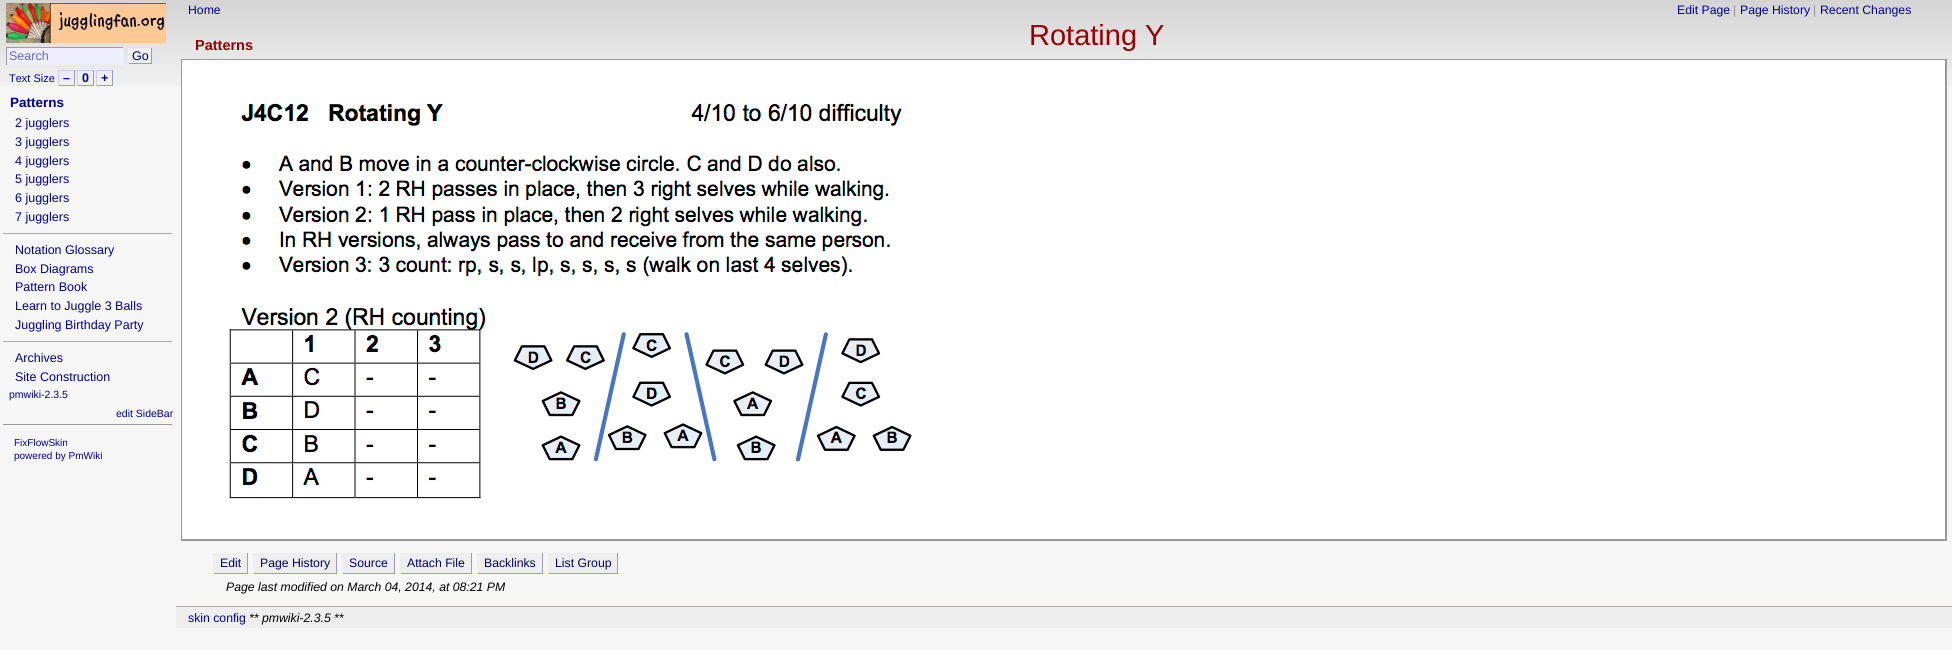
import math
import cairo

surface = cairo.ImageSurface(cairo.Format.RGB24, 1952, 650)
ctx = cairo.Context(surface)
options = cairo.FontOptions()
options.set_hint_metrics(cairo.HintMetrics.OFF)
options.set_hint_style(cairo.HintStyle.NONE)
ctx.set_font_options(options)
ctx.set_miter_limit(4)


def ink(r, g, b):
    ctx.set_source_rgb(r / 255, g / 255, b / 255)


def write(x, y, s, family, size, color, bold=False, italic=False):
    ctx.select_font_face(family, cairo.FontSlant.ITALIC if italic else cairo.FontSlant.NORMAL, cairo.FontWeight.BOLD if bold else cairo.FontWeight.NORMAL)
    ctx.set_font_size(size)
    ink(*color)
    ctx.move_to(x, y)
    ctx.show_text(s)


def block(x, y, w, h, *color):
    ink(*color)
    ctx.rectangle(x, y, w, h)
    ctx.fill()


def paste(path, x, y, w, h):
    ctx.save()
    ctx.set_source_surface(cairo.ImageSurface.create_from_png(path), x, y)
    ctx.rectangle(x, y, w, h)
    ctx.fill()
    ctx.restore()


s1 = dict(family="Liberation Sans", size=12.5, color=(102, 102, 204))
s2 = dict(family="Liberation Sans", size=12.5, color=(0, 0, 102))
s3 = dict(family="Liberation Sans", size=11, color=(0, 0, 153))
s4 = dict(family="Liberation Sans", size=12.5, color=(0, 0, 153), bold=True)
s5 = dict(family="Liberation Sans", size=13.5, color=(0, 0, 153), bold=True)
s6 = dict(family="Liberation Sans", size=12.5, color=(0, 0, 153))
s7 = dict(family="Liberation Sans", size=10.5, color=(0, 0, 153))
s8 = dict(family="Liberation Sans", size=10, color=(0, 0, 153))
s9 = dict(family="Liberation Sans", size=12.25, color=(0, 0, 153))
s10 = dict(family="Liberation Sans", size=12.25, color=(153, 153, 153))
s11 = dict(family="Liberation Sans", size=14.5, color=(153, 0, 0), bold=True)
s12 = dict(family="Liberation Sans", size=29, color=(153, 0, 0))
s13 = dict(family="Liberation Sans", size=12.25, color=(0, 0, 102))
s14 = dict(family="Liberation Sans", size=12.25, color=(0, 0, 0), italic=True)

ink(246, 246, 246)
ctx.paint()
paste("pic1.png", 0, 0, 1952, 86)
paste("pic2.png", 6, 3, 160, 40)
block(7, 48, 116, 16, 238, 238, 255)
block(6, 47, 118, 1, 153, 153, 204)
block(123, 47, 1, 18, 238, 238, 238)
block(6, 64, 118, 1, 238, 238, 238)
block(6, 47, 1, 18, 153, 153, 204)
write(9, 60, "Search", **s1)
block(129, 49, 22, 14, 238, 238, 238)
block(128, 48, 24, 1, 238, 238, 255)
block(151, 48, 1, 16, 153, 153, 204)
block(128, 63, 24, 1, 153, 153, 204)
block(128, 48, 1, 16, 238, 238, 255)
write(132, 60, "Go", **s2)
write(9, 82, "Text Size", **s3)
block(58, 70, 17, 1, 204, 204, 255)
block(74, 70, 1, 16, 153, 153, 204)
block(58, 85, 17, 1, 153, 153, 204)
block(58, 70, 1, 16, 204, 204, 255)
write(63, 82, "–", **s4)
write(82, 82, "0", **s4)
block(77, 70, 17, 1, 204, 204, 255)
block(93, 70, 1, 16, 153, 153, 204)
block(77, 85, 17, 1, 153, 153, 204)
block(77, 70, 1, 16, 204, 204, 255)
write(101, 82, "+", **s4)
block(96, 70, 17, 1, 204, 204, 255)
block(112, 70, 1, 16, 153, 153, 204)
block(96, 85, 17, 1, 153, 153, 204)
block(96, 70, 1, 16, 204, 204, 255)
write(10, 107, "Patterns", **s5)
write(15, 127, "2 jugglers", **s6)
write(15, 146, "3 jugglers", **s6)
write(15, 165, "4 jugglers", **s6)
write(15, 183, "5 jugglers", **s6)
write(15, 202, "6 jugglers", **s6)
write(15, 221, "7 jugglers", **s6)
block(3, 233, 169, 1, 170, 170, 170)
write(15, 254, "Notation Glossary", **s6)
write(15, 273, "Box Diagrams", **s6)
write(15, 291, "Pattern Book", **s6)
write(15, 310, "Learn to Juggle 3 Balls", **s6)
write(15, 329, "Juggling Birthday Party", **s6)
block(3, 341, 169, 1, 170, 170, 170)
write(15, 362, "Archives", **s6)
write(15, 381, "Site Construction", **s6)
write(9, 398, "pmwiki-2.3.5", **s7)
write(116, 417, "edit SideBar", **s7)
block(3, 424, 169, 1, 153, 153, 153)
write(14, 446, "FixFlowSkin", **s8)
write(14, 459, "powered by PmWiki", **s8)
write(188, 14, "Home", **s9)
write(1677, 14, "Edit Page", **s9)
write(1733, 14, "|", **s10)
write(1740, 14, "Page History", **s9)
write(1813, 14, "|", **s10)
write(1820, 14, "Recent Changes", **s9)
write(195, 50, "Patterns", **s11)
write(1029, 45, "Rotating Y", **s12)
block(182, 60, 1763, 479, 255, 255, 255)
block(181, 59, 1766, 1, 153, 153, 153)
block(1945, 59, 2, 482, 153, 153, 153)
block(181, 539, 1766, 2, 153, 153, 153)
block(181, 59, 1, 482, 153, 153, 153)
paste("pic3.png", 229, 103, 683, 396)
block(214, 553, 33, 20, 238, 238, 238)
block(247, 553, 1, 21, 153, 153, 204)
block(213, 573, 35, 1, 153, 153, 204)
block(213, 553, 1, 21, 238, 238, 238)
write(220, 567, "Edit", **s13)
block(254, 553, 82, 20, 238, 238, 238)
block(336, 553, 1, 21, 153, 153, 204)
block(253, 573, 84, 1, 153, 153, 204)
block(253, 553, 1, 21, 238, 238, 238)
write(260, 567, "Page History", **s13)
block(343, 553, 51, 20, 238, 238, 238)
block(394, 553, 1, 21, 153, 153, 204)
block(342, 573, 53, 1, 153, 153, 204)
block(342, 553, 1, 21, 238, 238, 238)
write(349, 567, "Source", **s13)
block(401, 553, 70, 20, 238, 238, 238)
block(471, 553, 1, 21, 153, 153, 204)
block(400, 573, 72, 1, 153, 153, 204)
block(400, 553, 1, 21, 238, 238, 238)
write(407, 567, "Attach File", **s13)
block(478, 553, 64, 20, 238, 238, 238)
block(542, 553, 1, 21, 153, 153, 204)
block(477, 573, 66, 1, 153, 153, 204)
block(477, 553, 1, 21, 238, 238, 238)
write(484, 567, "Backlinks", **s13)
block(549, 553, 68, 20, 238, 238, 238)
block(617, 553, 1, 21, 153, 153, 204)
block(548, 573, 70, 1, 153, 153, 204)
block(548, 553, 1, 21, 238, 238, 238)
write(555, 567, "List Group", **s13)
write(226, 591, "Page last modified on March 04, 2014, at 08:21 PM", **s14)
block(176, 607, 1776, 21, 238, 238, 238)
block(176, 606, 1776, 1, 172, 168, 153)
write(188, 622, "skin config", **s9)
write(249, 622, "** pmwiki-2.3.5 **", **s14)
surface.write_to_png("screenshot.png")
